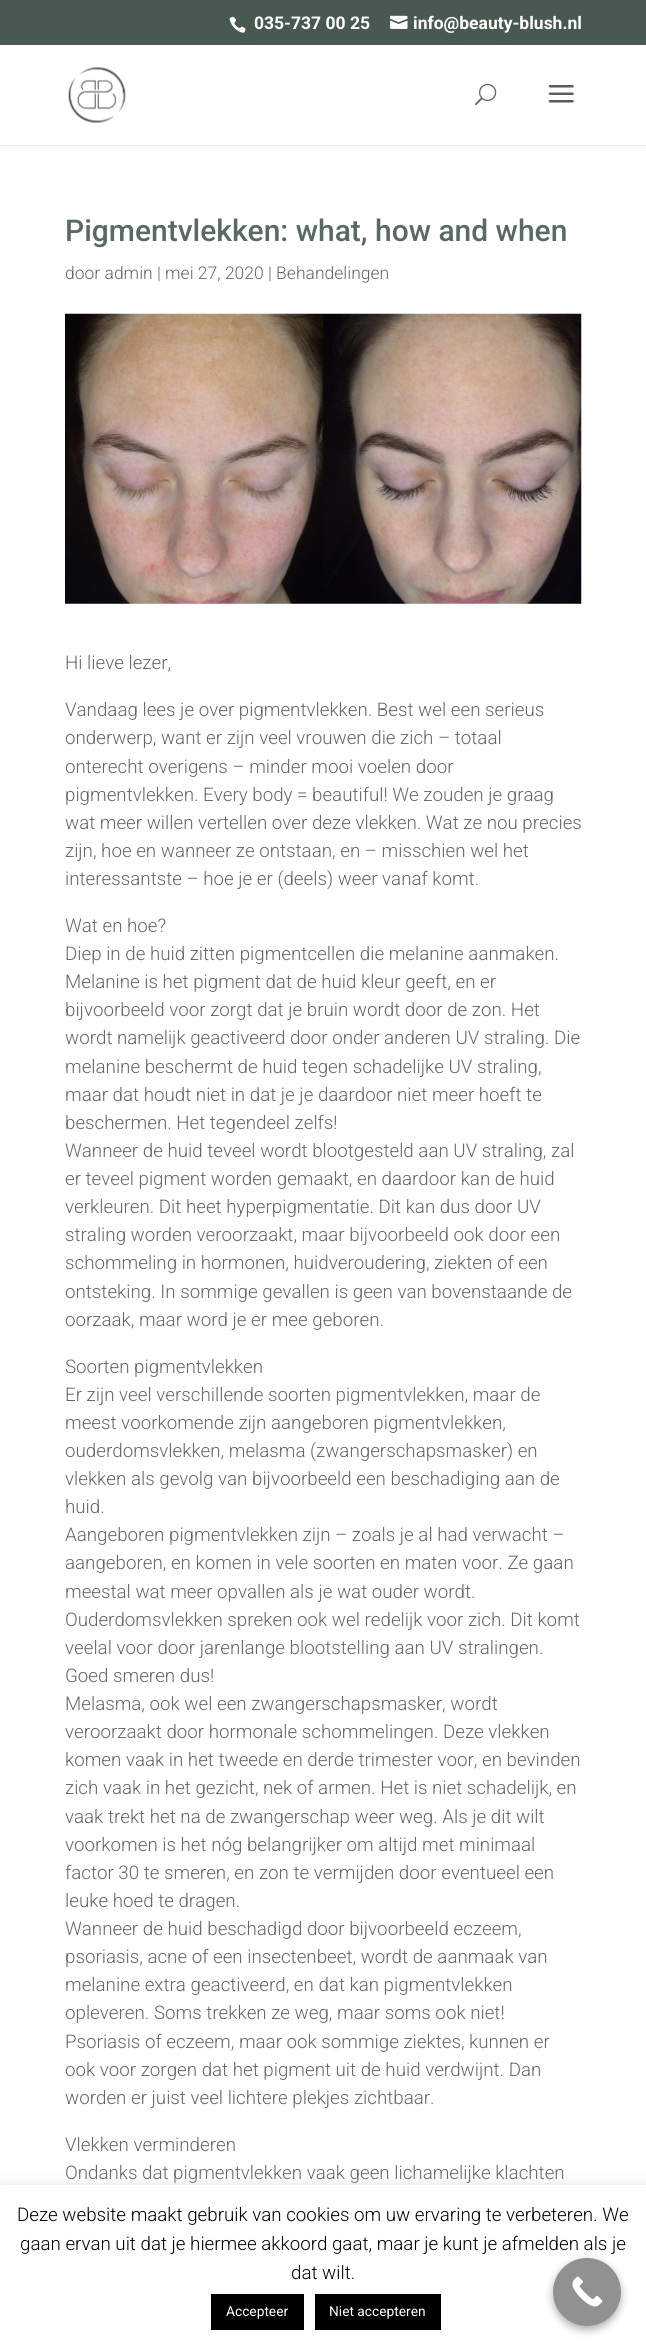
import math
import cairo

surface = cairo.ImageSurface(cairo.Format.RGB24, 646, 2344)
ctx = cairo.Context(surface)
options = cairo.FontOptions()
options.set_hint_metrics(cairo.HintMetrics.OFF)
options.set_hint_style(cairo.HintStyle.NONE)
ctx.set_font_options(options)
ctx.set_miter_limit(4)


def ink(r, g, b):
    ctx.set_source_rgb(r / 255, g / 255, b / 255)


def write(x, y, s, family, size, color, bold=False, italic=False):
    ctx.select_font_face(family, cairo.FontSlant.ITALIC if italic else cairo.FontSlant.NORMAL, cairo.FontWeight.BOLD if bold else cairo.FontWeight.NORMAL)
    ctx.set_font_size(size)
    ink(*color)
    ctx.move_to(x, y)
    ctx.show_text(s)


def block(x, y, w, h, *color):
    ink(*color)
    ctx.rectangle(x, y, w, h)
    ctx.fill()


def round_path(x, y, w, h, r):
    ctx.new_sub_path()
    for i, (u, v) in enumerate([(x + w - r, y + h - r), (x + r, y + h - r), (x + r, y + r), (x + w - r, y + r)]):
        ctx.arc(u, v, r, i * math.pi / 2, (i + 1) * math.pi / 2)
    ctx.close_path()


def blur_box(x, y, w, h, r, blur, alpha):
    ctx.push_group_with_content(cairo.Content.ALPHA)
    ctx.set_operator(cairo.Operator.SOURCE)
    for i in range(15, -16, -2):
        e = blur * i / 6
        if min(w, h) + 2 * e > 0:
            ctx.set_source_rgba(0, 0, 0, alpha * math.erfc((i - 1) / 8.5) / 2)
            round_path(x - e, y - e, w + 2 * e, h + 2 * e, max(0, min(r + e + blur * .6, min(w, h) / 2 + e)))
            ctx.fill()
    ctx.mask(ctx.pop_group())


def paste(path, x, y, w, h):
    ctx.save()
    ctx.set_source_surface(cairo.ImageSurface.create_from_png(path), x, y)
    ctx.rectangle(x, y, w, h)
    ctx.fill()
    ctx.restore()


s1 = dict(family="Roboto", size=17.5, color=(255, 255, 255), bold=True)
s2 = dict(family="Roboto Medium", size=30, color=(88, 106, 98))
s3 = dict(family="Roboto Light", size=17.5, color=(102, 102, 102))
s4 = dict(family="Roboto Light", size=18.75, color=(102, 102, 102))
s5 = dict(family="Roboto Light", size=18.75, color=(0, 0, 0))
s6 = dict(family="Roboto", size=13.75, color=(255, 255, 255))

ink(255, 255, 255)
ctx.paint()
block(0, 0, 646, 45, 72, 89, 80)
paste("pic1.png", 229, 16, 17, 17)
write(254, 29, "035-737 00 25", **s1)
paste("pic2.png", 390, 15, 18, 14)
write(413, 29, "info@beauty-blush.nl", **s1)
block(0, 145, 646, 1, 230, 230, 230)
paste("pic3.png", 68, 67, 58, 56)
paste("pic4.png", 475, 83, 22, 23)
paste("pic5.png", 548, 85, 26, 18)
write(65, 241, "Pigmentvlekken: what, how and when", **s2)
write(65, 279, "door admin | mei 27, 2020 | Behandelingen", **s3)
paste("pic6.png", 65, 313, 517, 291)
write(65, 669, "Hi lieve lezer,", **s4)
write(65, 716, "Vandaag lees je over pigmentvlekken. Best wel een serieus", **s4)
write(65, 744, "onderwerp, want er zijn veel vrouwen die zich – totaal", **s4)
write(65, 773, "onterecht overigens – minder mooi voelen door", **s4)
write(65, 801, "pigmentvlekken. Every body = beautiful! We zouden je graag", **s4)
write(65, 829, "wat meer willen vertellen over deze vlekken. Wat ze nou precies", **s4)
write(65, 857, "zijn, hoe en wanneer ze ontstaan, en – misschien wel het", **s4)
write(65, 885, "interessantste – hoe je er (deels) weer vanaf komt.", **s4)
write(65, 932, "Wat en hoe?", **s4)
write(65, 960, "Diep in de huid zitten pigmentcellen die melanine aanmaken.", **s4)
write(65, 988, "Melanine is het pigment dat de huid kleur geeft, en er", **s4)
write(65, 1016, "bijvoorbeeld voor zorgt dat je bruin wordt door de zon. Het", **s4)
write(65, 1044, "wordt namelijk geactiveerd door onder anderen UV straling. Die", **s4)
write(65, 1073, "melanine beschermt de huid tegen schadelijke UV straling,", **s4)
write(65, 1101, "maar dat houdt niet in dat je je daardoor niet meer hoeft te", **s4)
write(65, 1129, "beschermen. Het tegendeel zelfs!", **s4)
write(65, 1157, "Wanneer de huid teveel wordt blootgesteld aan UV straling, zal", **s4)
write(65, 1185, "er teveel pigment worden gemaakt, en daardoor kan de huid", **s4)
write(65, 1213, "verkleuren. Dit heet hyperpigmentatie. Dit kan dus door UV", **s4)
write(65, 1241, "straling worden veroorzaakt, maar bijvoorbeeld ook door een", **s4)
write(65, 1269, "schommeling in hormonen, huidveroudering, ziekten of een", **s4)
write(65, 1298, "ontsteking. In sommige gevallen is geen van bovenstaande de", **s4)
write(65, 1326, "oorzaak, maar word je er mee geboren.", **s4)
write(65, 1373, "Soorten pigmentvlekken", **s4)
write(65, 1401, "Er zijn veel verschillende soorten pigmentvlekken, maar de", **s4)
write(65, 1429, "meest voorkomende zijn aangeboren pigmentvlekken,", **s4)
write(65, 1457, "ouderdomsvlekken, melasma (zwangerschapsmasker) en", **s4)
write(65, 1485, "vlekken als gevolg van bijvoorbeeld een beschadiging aan de", **s4)
write(65, 1513, "huid.", **s4)
write(65, 1541, "Aangeboren pigmentvlekken zijn – zoals je al had verwacht –", **s4)
write(65, 1569, "aangeboren, en komen in vele soorten en maten voor. Ze gaan", **s4)
write(65, 1598, "meestal wat meer opvallen als je wat ouder wordt.", **s4)
write(65, 1626, "Ouderdomsvlekken spreken ook wel redelijk voor zich. Dit komt", **s4)
write(65, 1654, "veelal voor door jarenlange blootstelling aan UV stralingen.", **s4)
write(65, 1682, "Goed smeren dus!", **s4)
write(65, 1710, "Melasma, ook wel een zwangerschapsmasker, wordt", **s4)
write(65, 1738, "veroorzaakt door hormonale schommelingen. Deze vlekken", **s4)
write(65, 1766, "komen vaak in het tweede en derde trimester voor, en bevinden", **s4)
write(65, 1794, "zich vaak in het gezicht, nek of armen. Het is niet schadelijk, en", **s4)
write(65, 1823, "vaak trekt het na de zwangerschap weer weg. Als je dit wilt", **s4)
write(65, 1851, "voorkomen is het nóg belangrijker om altijd met minimaal", **s4)
write(65, 1879, "factor 30 te smeren, en zon te vermijden door eventueel een", **s4)
write(65, 1907, "leuke hoed te dragen.", **s4)
write(65, 1935, "Wanneer de huid beschadigd door bijvoorbeeld eczeem,", **s4)
write(65, 1963, "psoriasis, acne of een insectenbeet, wordt de aanmaak van", **s4)
write(65, 1991, "melanine extra geactiveerd, en dat kan pigmentvlekken", **s4)
write(65, 2019, "opleveren. Soms trekken ze weg, maar soms ook niet!", **s4)
write(65, 2048, "Psoriasis of eczeem, maar ook sommige ziektes, kunnen er", **s4)
write(65, 2076, "ook voor zorgen dat het pigment uit de huid verdwijnt. Dan", **s4)
write(65, 2104, "worden er juist veel lichtere plekjes zichtbaar.", **s4)
write(65, 2151, "Vlekken verminderen", **s4)
write(65, 2179, "Ondanks dat pigmentvlekken vaak geen lichamelijke klachten", **s4)
ink(172, 171, 171)
blur_box(0, 2184, 646, 160, 0, 6, 0.3)
block(0, 2185, 646, 159, 255, 255, 255)
write(17, 2221, "Deze website maakt gebruik van cookies om uw ervaring te verbeteren. We", **s5)
write(20, 2250, "gaan ervan uit dat je hiermee akkoord gaat, maar je kunt je afmelden als je", **s5)
write(291, 2279, "dat wilt.", **s5)
block(211, 2294, 93, 36, 0, 0, 0)
write(226, 2316, "Accepteer", **s6)
block(315, 2294, 126, 36, 0, 0, 0)
write(329, 2316, "Niet accepteren", **s6)
ink(0, 0, 0)
blur_box(553, 2261, 68, 69, 34, 4, 0.3)
ink(145, 145, 145)
ctx.arc(587, 2292, 34, 0, 2 * math.pi)
ctx.fill()
paste("pic7.png", 572, 2276, 31, 31)
surface.write_to_png("screenshot.png")
